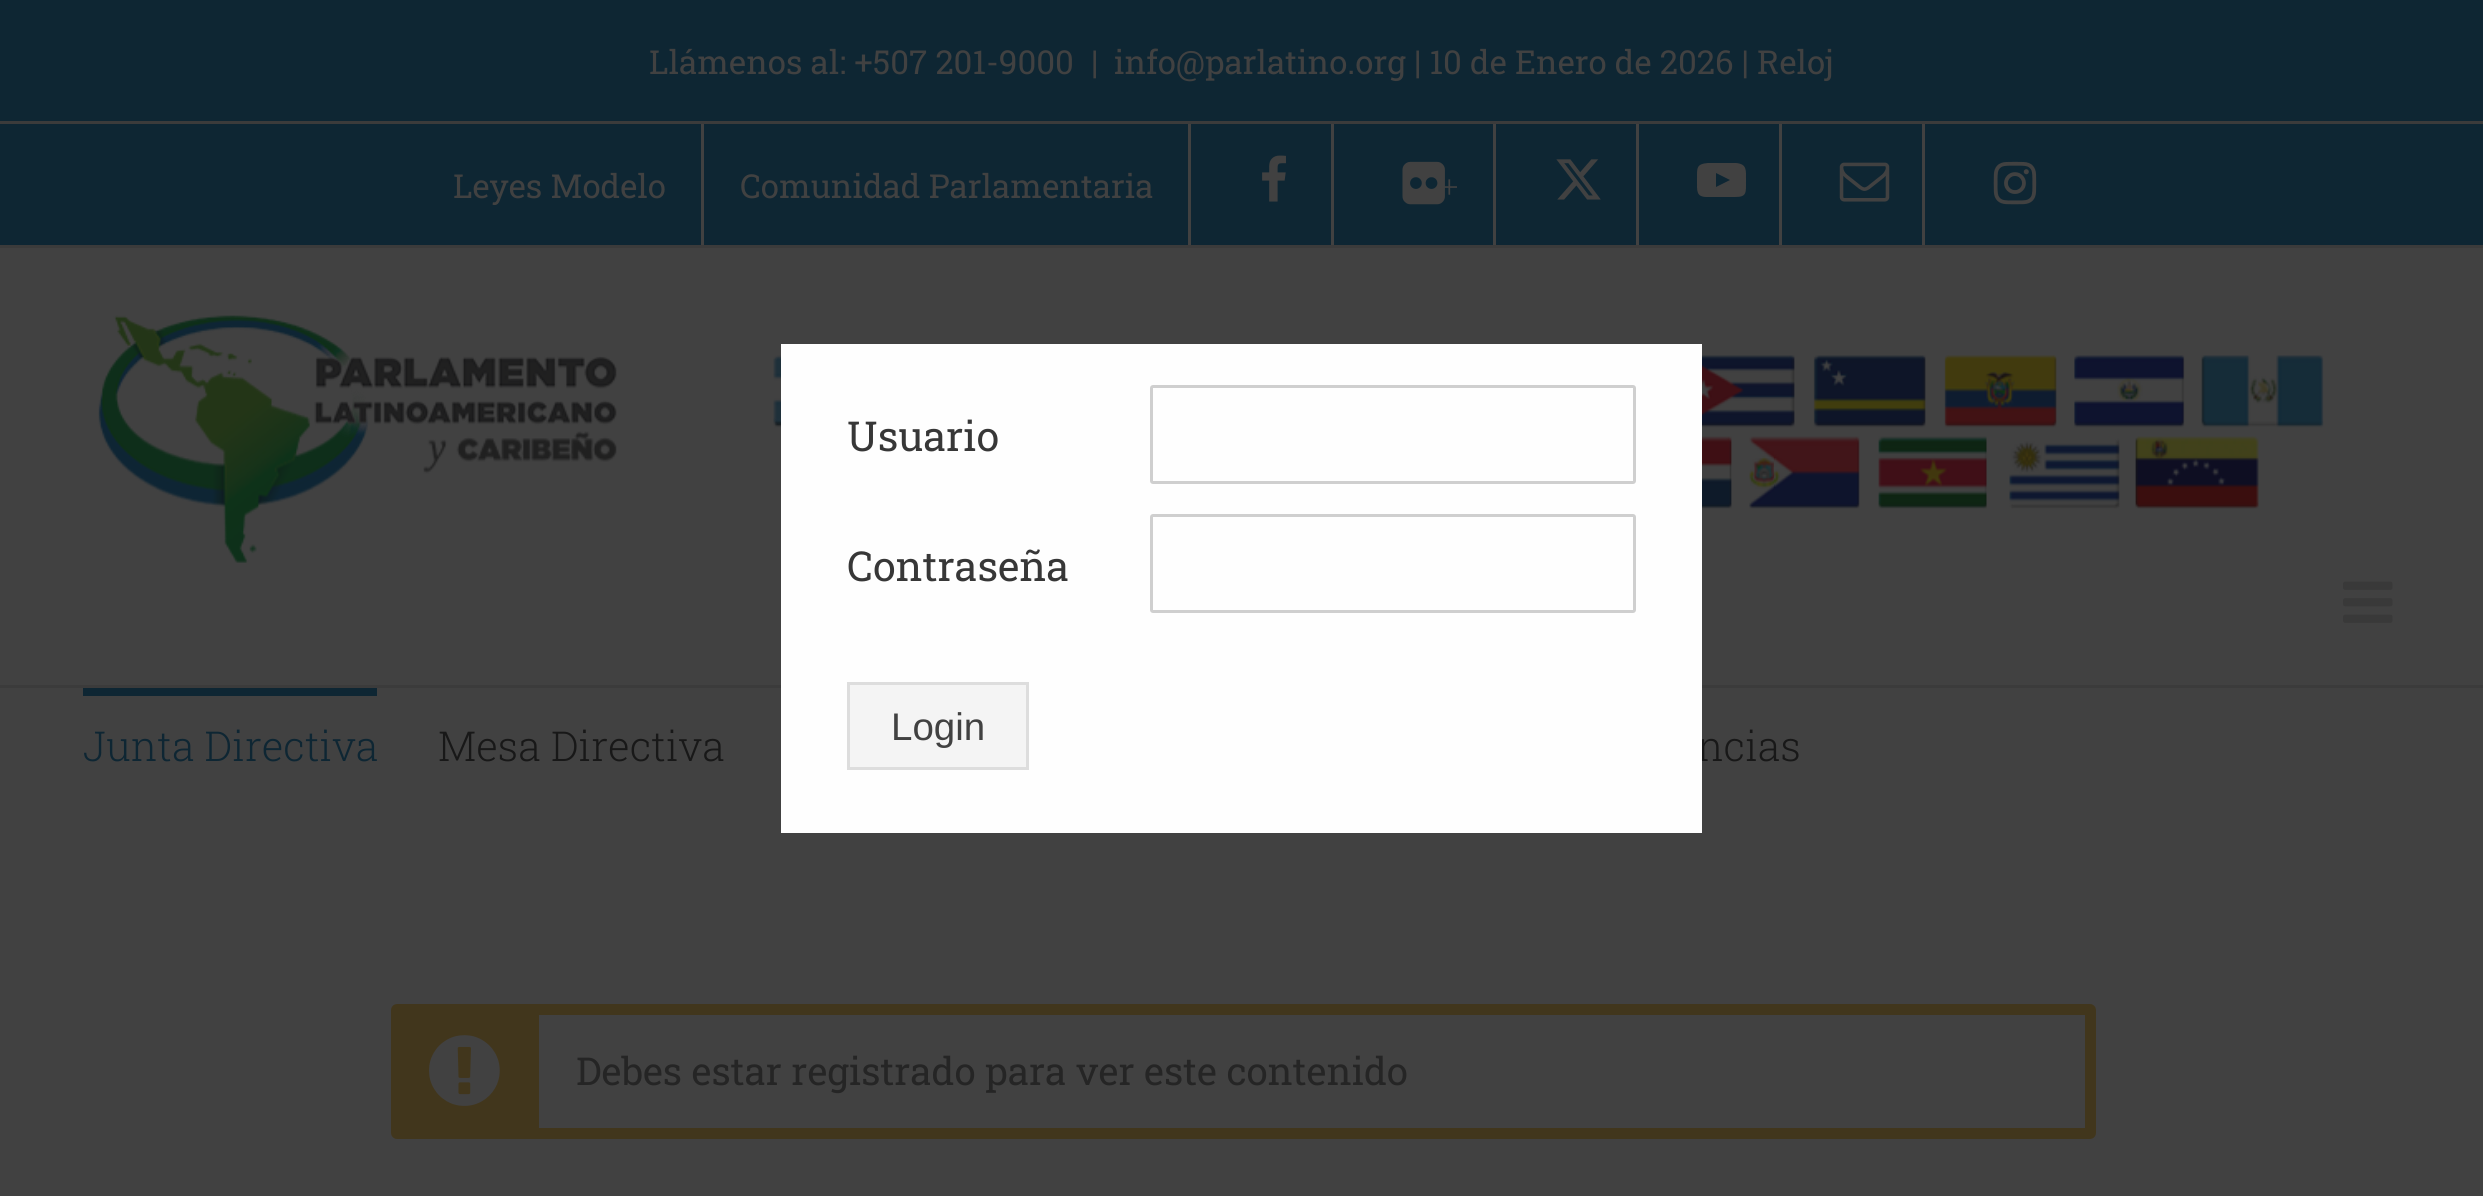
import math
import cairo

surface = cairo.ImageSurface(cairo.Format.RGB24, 2483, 1196)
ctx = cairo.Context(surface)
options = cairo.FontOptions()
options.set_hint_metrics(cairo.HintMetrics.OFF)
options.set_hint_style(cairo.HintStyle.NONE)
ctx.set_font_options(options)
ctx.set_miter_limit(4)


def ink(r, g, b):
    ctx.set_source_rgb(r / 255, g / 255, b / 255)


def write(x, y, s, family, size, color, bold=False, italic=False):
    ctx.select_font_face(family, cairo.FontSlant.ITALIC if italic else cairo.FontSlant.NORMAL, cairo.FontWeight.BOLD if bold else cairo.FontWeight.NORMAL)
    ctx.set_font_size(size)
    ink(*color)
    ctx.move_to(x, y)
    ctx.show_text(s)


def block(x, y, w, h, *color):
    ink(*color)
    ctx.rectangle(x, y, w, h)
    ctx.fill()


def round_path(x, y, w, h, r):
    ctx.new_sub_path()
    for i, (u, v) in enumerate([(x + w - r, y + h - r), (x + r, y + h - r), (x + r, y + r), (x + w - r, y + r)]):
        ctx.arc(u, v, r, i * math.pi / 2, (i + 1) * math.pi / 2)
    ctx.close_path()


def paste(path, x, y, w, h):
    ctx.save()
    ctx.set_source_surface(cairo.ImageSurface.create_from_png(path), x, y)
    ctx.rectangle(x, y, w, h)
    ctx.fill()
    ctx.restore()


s1 = dict(family="Roboto Slab", size=33, color=(65, 65, 65))
s2 = dict(family="Liberation Serif", size=33, color=(65, 65, 65))
s3 = dict(family="Roboto Slab Light", size=41.25, color=(14, 38, 51))
s4 = dict(family="Roboto Slab Light", size=41.25, color=(24, 24, 24))
s5 = dict(family="Roboto Slab", size=38.5, color=(37, 37, 37))
s6 = dict(family="Roboto Slab", size=41.25, color=(55, 55, 55))
s7 = dict(family="Liberation Sans", size=38.5, color=(65, 65, 65))

ink(65, 65, 65)
ctx.paint()
block(0, 0, 2483, 245, 14, 38, 51)
block(0, 245, 2483, 3, 59, 59, 59)
block(0, 121, 2483, 3, 59, 59, 59)
write(649, 74, "Llámenos al: +507 201-9000", **s1)
write(1091, 74, "|", **s1)
write(1114, 74, "info@parlatino.org | 10 de Enero de 2026 | Reloj", **s1)
write(453, 198, "Leyes Modelo", **s1)
block(701, 124, 3, 121, 65, 65, 65)
write(740, 198, "Comunidad Parlamentaria", **s1)
block(1188, 124, 3, 121, 65, 65, 65)
paste("pic1.png", 1262, 155, 24, 47)
block(1331, 124, 3, 121, 65, 65, 65)
paste("pic2.png", 1402, 161, 43, 44)
write(1440, 198, "+", **s2)
block(1493, 124, 3, 121, 65, 65, 65)
paste("pic3.png", 1556, 159, 45, 41)
block(1636, 124, 3, 121, 65, 65, 65)
ctx.new_path()
ctx.move_to(1716, 187)
ctx.line_to(1730, 180)
ctx.line_to(1716, 173)
ctx.close_path()
ctx.move_to(1722, 163)
ctx.line_to(1736, 163)
ctx.curve_to(1747, 164, 1746, 170, 1746, 180)
ctx.curve_to(1746, 193, 1747, 197, 1735, 197)
ctx.line_to(1707, 197)
ctx.curve_to(1696, 197, 1697, 191, 1697, 180)
ctx.curve_to(1697, 168, 1696, 164, 1708, 163)
ctx.close_path()
ctx.fill()
block(1779, 124, 3, 121, 65, 65, 65)
paste("pic4.png", 1839, 162, 51, 40)
block(1922, 124, 3, 121, 65, 65, 65)
paste("pic5.png", 1993, 161, 44, 44)
block(0, 685, 2483, 3, 59, 59, 59)
paste("pic6.png", 98, 315, 2226, 248)
paste("pic7.png", 2343, 581, 50, 42)
block(83, 688, 294, 8, 14, 38, 51)
write(83, 761, "Junta Directiva", **s3)
write(438, 761, "Mesa Directiva", **s4)
write(1697, 761, "ncias", **s4)
round_path(396.5, 1009.5, 1694, 124, 0.5)
ink(65, 54, 28)
ctx.set_line_width(11)
ctx.stroke()
block(402, 1015, 137, 113, 65, 54, 28)
paste("pic8.png", 429, 1035, 71, 71)
write(576, 1085, "Debes estar registrado para ver este contenido", **s5)
block(781, 344, 921, 489, 254, 254, 254)
write(847, 451, "Usuario", **s6)
round_path(1151.5, 386.5, 483, 96, 1.5)
ink(207, 207, 207)
ctx.set_line_width(3)
ctx.stroke()
write(847, 581, "Contraseña", **s6)
round_path(1151.5, 515.5, 483, 96, 1.5)
ink(207, 207, 207)
ctx.stroke()
ink(244, 244, 244)
ctx.rectangle(848.5, 683.5, 179, 85)
ctx.fill_preserve()
ink(221, 221, 221)
ctx.stroke()
write(891, 740, "Login", **s7)
surface.write_to_png("screenshot.png")
